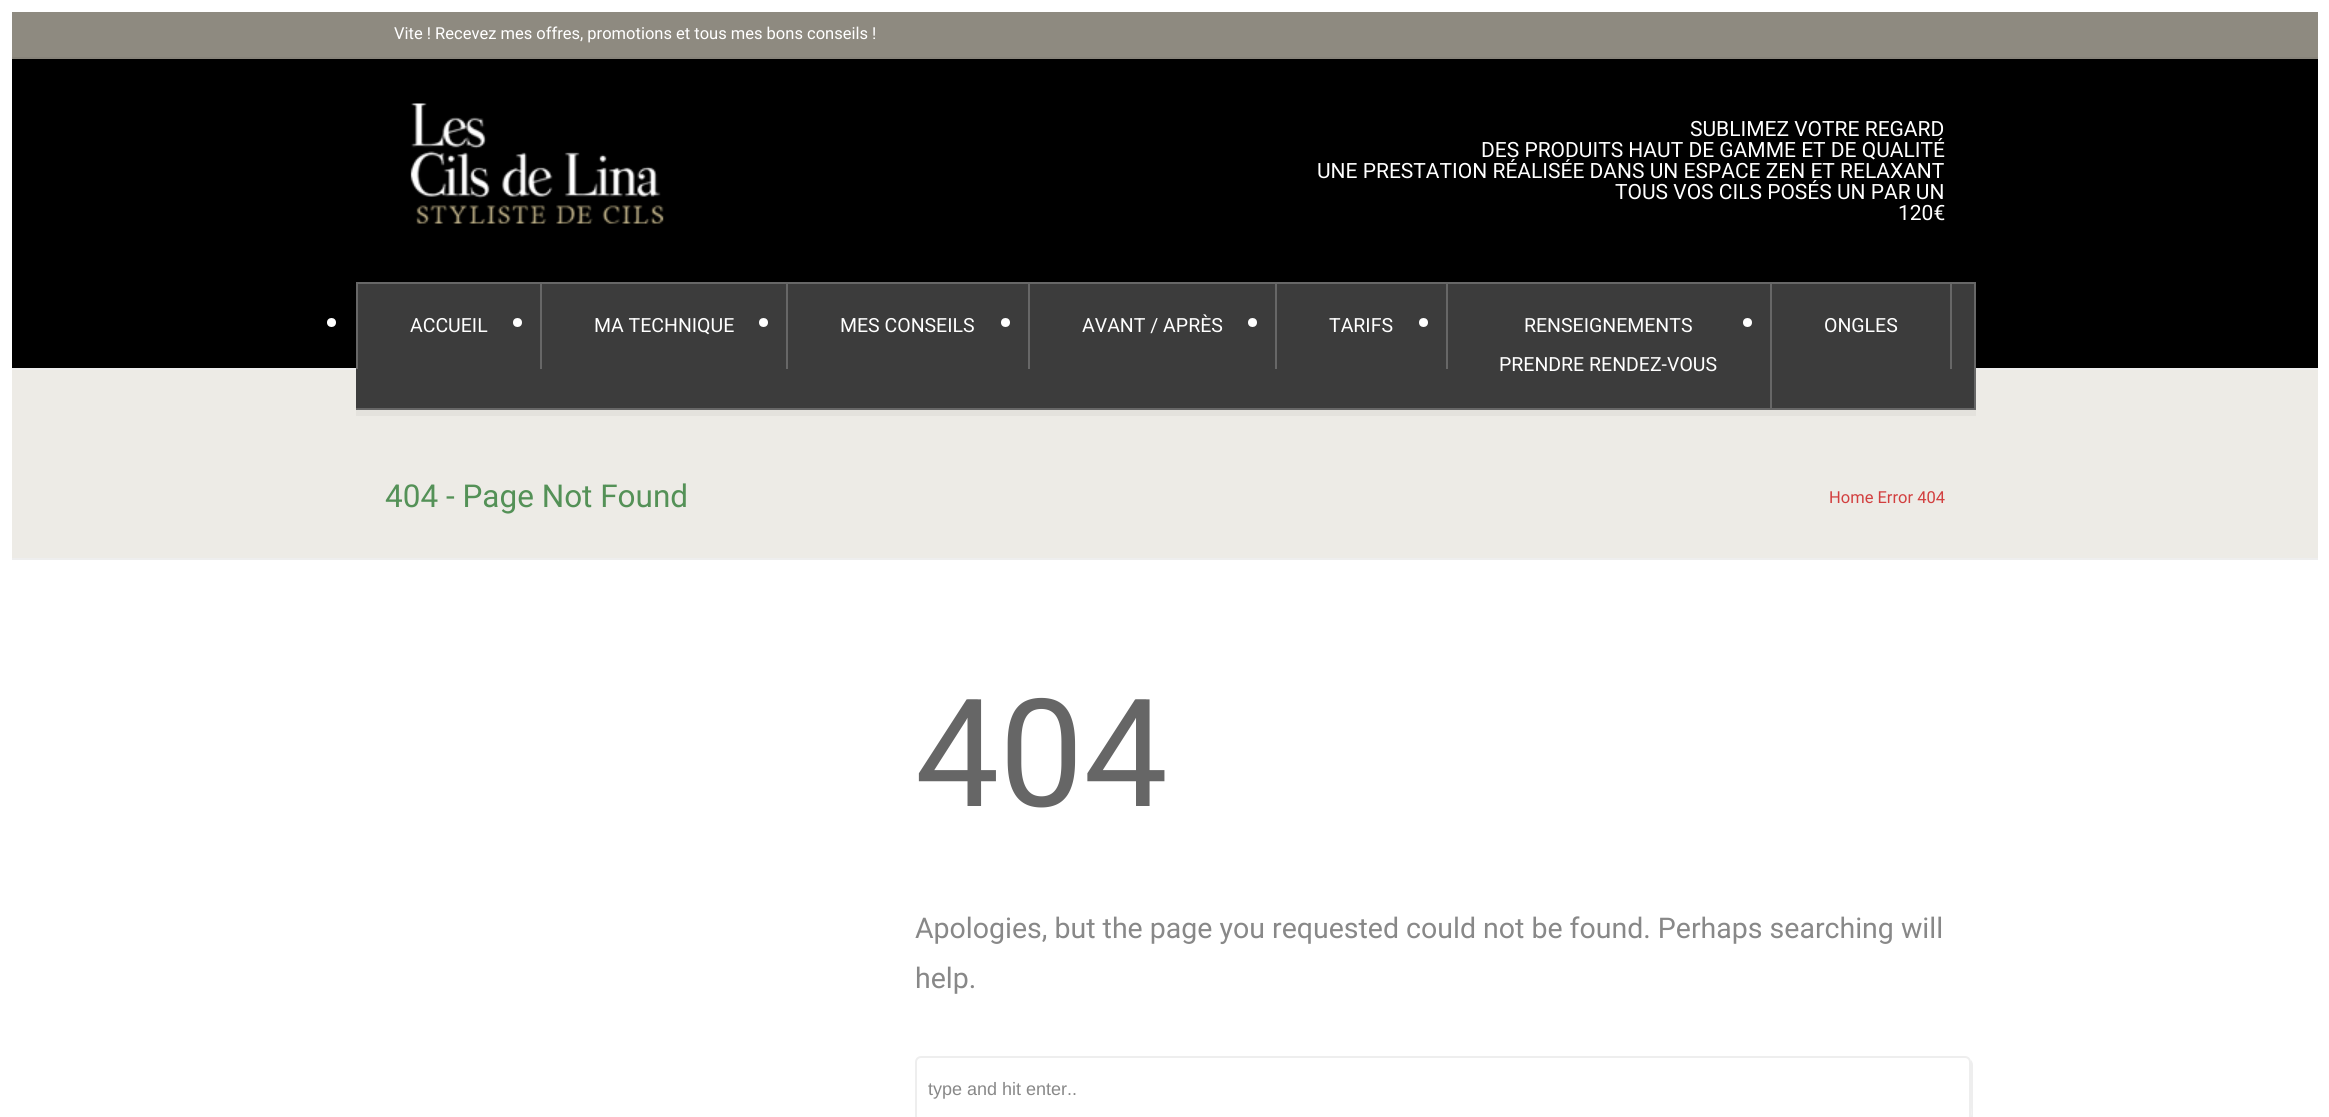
import math
import cairo

surface = cairo.ImageSurface(cairo.Format.RGB24, 2329, 1117)
ctx = cairo.Context(surface)
options = cairo.FontOptions()
options.set_hint_metrics(cairo.HintMetrics.OFF)
options.set_hint_style(cairo.HintStyle.NONE)
ctx.set_font_options(options)
ctx.set_miter_limit(4)


def ink(r, g, b):
    ctx.set_source_rgb(r / 255, g / 255, b / 255)


def write(x, y, s, family, size, color, bold=False, italic=False):
    ctx.select_font_face(family, cairo.FontSlant.ITALIC if italic else cairo.FontSlant.NORMAL, cairo.FontWeight.BOLD if bold else cairo.FontWeight.NORMAL)
    ctx.set_font_size(size)
    ink(*color)
    ctx.move_to(x, y)
    ctx.show_text(s)


def block(x, y, w, h, *color):
    ink(*color)
    ctx.rectangle(x, y, w, h)
    ctx.fill()


def round_path(x, y, w, h, r):
    ctx.new_sub_path()
    for i, (u, v) in enumerate([(x + w - r, y + h - r), (x + r, y + h - r), (x + r, y + r), (x + w - r, y + r)]):
        ctx.arc(u, v, r, i * math.pi / 2, (i + 1) * math.pi / 2)
    ctx.close_path()


def paste(path, x, y, w, h):
    ctx.save()
    ctx.set_source_surface(cairo.ImageSurface.create_from_png(path), x, y)
    ctx.rectangle(x, y, w, h)
    ctx.fill()
    ctx.restore()


s1 = dict(family="Roboto", size=16.5, color=(255, 255, 255))
s2 = dict(family="Roboto", size=21, color=(255, 255, 255))
s3 = dict(family="Roboto", size=19.5, color=(255, 255, 255))
s4 = dict(family="Roboto", size=31.5, color=(84, 145, 87))
s5 = dict(family="Roboto", size=16.5, color=(210, 63, 63))
s6 = dict(family="Roboto", size=150, color=(102, 102, 102))
s7 = dict(family="Roboto", size=28.5, color=(136, 136, 136))
s8 = dict(family="Liberation Sans", size=18, color=(136, 136, 136))

ink(255, 255, 255)
ctx.paint()
block(12, 12, 2306, 45, 142, 138, 128)
block(12, 57, 2306, 2, 136, 132, 123)
write(394, 39, "Vite ! Recevez mes offres, promotions et tous mes bons conseils !", **s1)
block(12, 59, 2306, 309, 0, 0, 0)
paste("pic1.png", 410, 103, 254, 121)
write(1690, 136, "SUBLIMEZ VOTRE REGARD", **s2)
write(1481, 157, "DES PRODUITS HAUT DE GAMME ET DE QUALITÉ", **s2)
write(1317, 178, "UNE PRESTATION RÉALISÉE DANS UN ESPACE ZEN ET RELAXANT", **s2)
write(1615, 199, "TOUS VOS CILS POSÉS UN PAR UN", **s2)
write(1898, 220, "120€", **s2)
block(12, 370, 2306, 188, 237, 235, 230)
ink(228, 226, 221)
ctx.new_path()
ctx.move_to(356, 410)
ctx.line_to(356, 416)
ctx.line_to(1976, 416)
ctx.line_to(1976, 288)
ctx.line_to(1976, 410)
ctx.close_path()
ctx.fill()
block(12, 368, 2306, 2, 238, 238, 238)
block(356, 284, 1618, 124, 60, 60, 60)
block(356, 282, 1620, 2, 103, 103, 103)
block(1974, 282, 2, 128, 103, 103, 103)
block(356, 408, 1620, 2, 103, 103, 103)
block(540, 284, 2, 85, 103, 103, 103)
block(356, 284, 2, 85, 103, 103, 103)
ink(255, 255, 255)
ctx.arc(331.5, 322.5, 4.5, 0, 2 * math.pi)
ctx.fill()
write(410, 332, "ACCUEIL", **s3)
block(786, 284, 2, 85, 103, 103, 103)
ink(255, 255, 255)
ctx.new_path()
ctx.arc(517.5, 322.5, 4.5, 0, 2 * math.pi)
ctx.fill()
write(594, 332, "MA TECHNIQUE", **s3)
block(1028, 284, 2, 85, 103, 103, 103)
ink(255, 255, 255)
ctx.new_path()
ctx.arc(763.5, 322.5, 4.5, 0, 2 * math.pi)
ctx.fill()
write(840, 332, "MES CONSEILS", **s3)
block(1275, 284, 2, 85, 103, 103, 103)
ink(255, 255, 255)
ctx.new_path()
ctx.arc(1005.5, 322.5, 4.5, 0, 2 * math.pi)
ctx.fill()
write(1082, 332, "AVANT / APRÈS", **s3)
block(1446, 284, 2, 85, 103, 103, 103)
ink(255, 255, 255)
ctx.new_path()
ctx.arc(1252.5, 322.5, 4.5, 0, 2 * math.pi)
ctx.fill()
write(1329, 332, "TARIFS", **s3)
block(1770, 284, 2, 124, 103, 103, 103)
ink(255, 255, 255)
ctx.new_path()
ctx.arc(1423.5, 322.5, 4.5, 0, 2 * math.pi)
ctx.fill()
write(1524, 332, "RENSEIGNEMENTS", **s3)
write(1499, 371, "PRENDRE RENDEZ-VOUS", **s3)
block(1950, 284, 2, 85, 103, 103, 103)
ink(255, 255, 255)
ctx.new_path()
ctx.arc(1747.5, 322.5, 4.5, 0, 2 * math.pi)
ctx.fill()
write(1824, 332, "ONGLES", **s3)
block(12, 558, 2306, 2, 238, 238, 238)
write(385, 507, "404 - Page Not Found", **s4)
write(1829, 503, "Home Error 404", **s5)
write(915, 806, "404", **s6)
write(915, 938, "Apologies, but the page you requested could not be found. Perhaps searching will", **s7)
write(915, 988, "help.", **s7)
ink(238, 238, 238)
ctx.new_path()
ctx.move_to(917, 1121)
ctx.curve_to(918, 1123, 920, 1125, 923, 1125)
ctx.line_to(1967, 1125)
ctx.curve_to(1970, 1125, 1973, 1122, 1973, 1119)
ctx.line_to(1973, 1065)
ctx.curve_to(1973, 1063, 1972, 1061, 1971, 1060)
ctx.line_to(1971, 1107)
ctx.curve_to(1971, 1112, 1973, 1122, 1965, 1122)
ctx.line_to(921, 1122)
ctx.close_path()
ctx.fill()
round_path(916, 1057, 1054, 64, 5)
ctx.stroke()
write(928, 1095, "type and hit enter..", **s8)
surface.write_to_png("screenshot.png")
